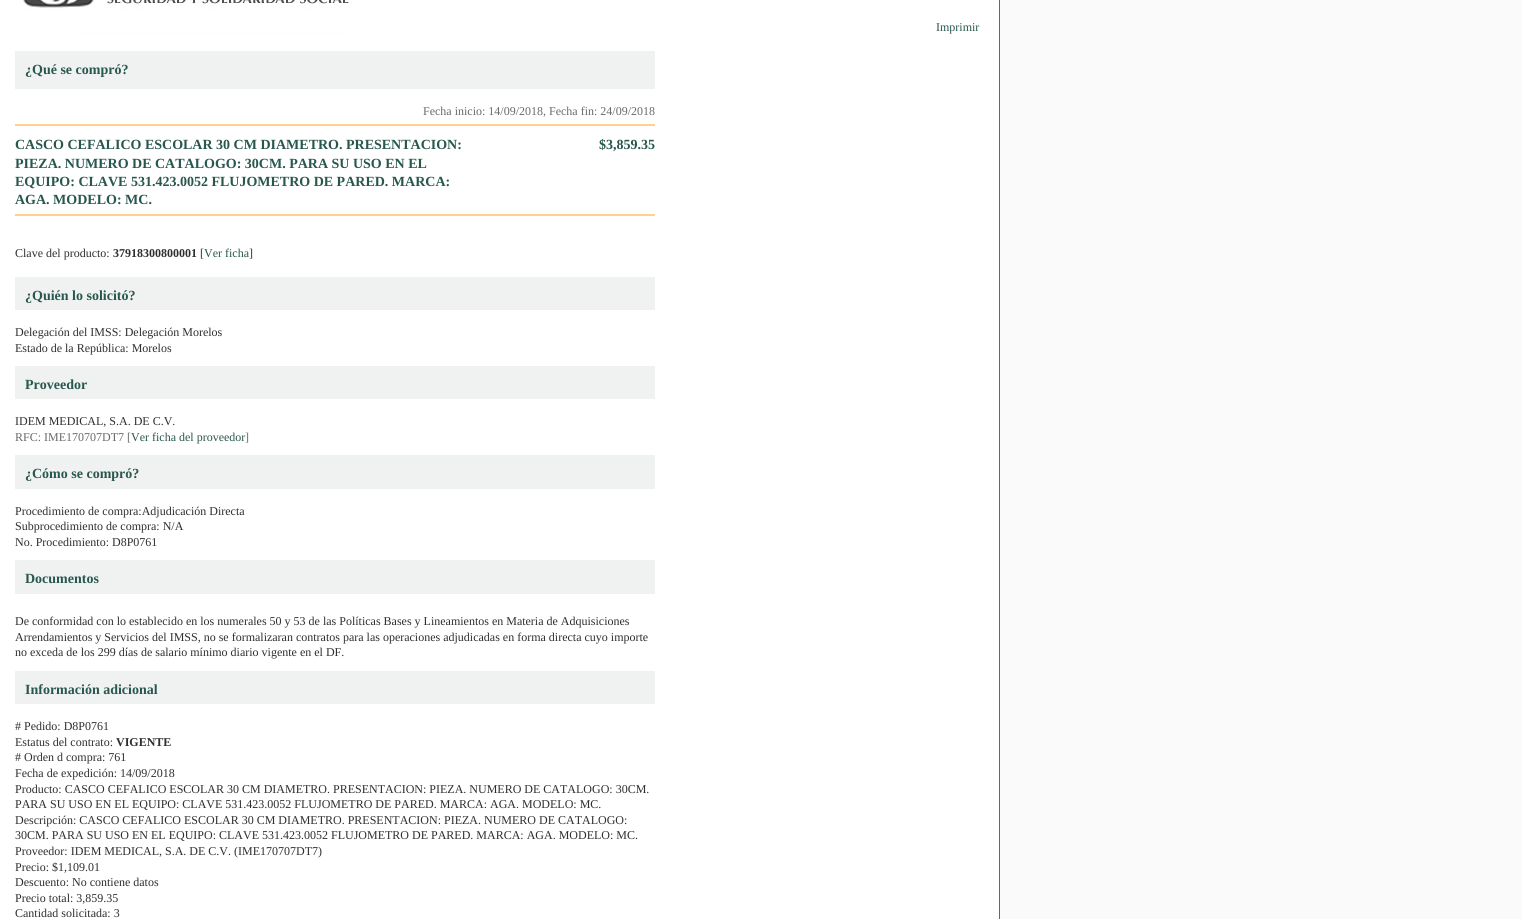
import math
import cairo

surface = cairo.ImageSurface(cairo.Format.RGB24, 1522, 919)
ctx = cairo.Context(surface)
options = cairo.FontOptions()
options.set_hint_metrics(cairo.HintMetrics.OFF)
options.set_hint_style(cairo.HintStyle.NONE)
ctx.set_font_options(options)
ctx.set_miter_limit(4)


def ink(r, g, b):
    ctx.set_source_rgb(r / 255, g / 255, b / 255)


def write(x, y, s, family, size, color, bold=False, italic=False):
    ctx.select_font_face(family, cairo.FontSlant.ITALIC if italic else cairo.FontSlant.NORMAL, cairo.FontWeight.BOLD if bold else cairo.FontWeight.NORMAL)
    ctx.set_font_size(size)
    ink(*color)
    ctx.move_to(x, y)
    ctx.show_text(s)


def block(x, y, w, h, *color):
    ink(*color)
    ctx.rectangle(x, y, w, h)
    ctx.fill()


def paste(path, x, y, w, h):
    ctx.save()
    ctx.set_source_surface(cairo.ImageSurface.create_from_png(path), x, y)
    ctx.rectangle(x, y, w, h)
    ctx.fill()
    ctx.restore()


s1 = dict(family="Liberation Serif", size=12, color=(40, 87, 77))
s2 = dict(family="Liberation Serif", size=14, color=(40, 87, 77), bold=True)
s3 = dict(family="Liberation Serif", size=12, color=(105, 105, 105))
s4 = dict(family="Liberation Serif", size=12, color=(46, 46, 46))
s5 = dict(family="Liberation Serif", size=12, color=(46, 46, 46), bold=True)

ink(250, 250, 250)
ctx.paint()
block(0, 0, 999, 919, 255, 255, 255)
block(999, 0, 1, 919, 102, 102, 102)
paste("pic1.png", 0, 0, 350, 34)
write(936, 31, "Imprimir", **s1)
block(15, 51, 640, 38, 240, 242, 241)
write(25, 74, "¿Qué se compró?", **s2)
write(423, 115, "Fecha inicio: 14/09/2018, Fecha fin: 24/09/2018", **s3)
block(15, 124, 640, 2, 254, 209, 144)
write(15, 149, "CASCO CEFALICO ESCOLAR 30 CM DIAMETRO. PRESENTACION:", **s2)
write(15, 168, "PIEZA. NUMERO DE CATALOGO: 30CM. PARA SU USO EN EL", **s2)
write(15, 186, "EQUIPO: CLAVE 531.423.0052 FLUJOMETRO DE PARED. MARCA:", **s2)
write(15, 204, "AGA. MODELO: MC.", **s2)
write(599, 149, "$3,859.35", **s2)
block(15, 214, 640, 2, 254, 209, 144)
write(15, 257, "Clave del producto:", **s4)
write(113, 257, "37918300800001", **s5)
write(200, 257, "[", **s4)
write(204, 257, "Ver ficha", **s1)
write(249, 257, "]", **s4)
block(15, 277, 640, 33, 240, 242, 241)
write(25, 300, "¿Quién lo solicitó?", **s2)
write(15, 336, "Delegación del IMSS: Delegación Morelos", **s4)
write(15, 352, "Estado de la República: Morelos", **s4)
block(15, 366, 640, 33, 240, 242, 241)
write(25, 389, "Proveedor", **s2)
write(15, 425, "IDEM MEDICAL, S.A. DE C.V.", **s4)
write(15, 441, "RFC: IME170707DT7 [", **s3)
write(131, 441, "Ver ficha del proveedor", **s1)
write(245, 441, "]", **s3)
block(15, 455, 640, 34, 240, 242, 241)
write(25, 478, "¿Cómo se compró?", **s2)
write(15, 515, "Procedimiento de compra:Adjudicación Directa", **s4)
write(15, 530, "Subprocedimiento de compra: N/A", **s4)
write(15, 546, "No. Procedimiento: D8P0761", **s4)
block(15, 560, 640, 34, 240, 242, 241)
write(25, 583, "Documentos", **s2)
write(15, 625, "De conformidad con lo establecido en los numerales 50 y 53 de las Políticas Bases y Lineamientos en Materia de Adquisiciones", **s4)
write(15, 641, "Arrendamientos y Servicios del IMSS, no se formalizaran contratos para las operaciones adjudicadas en forma directa cuyo importe", **s4)
write(15, 656, "no exceda de los 299 días de salario mínimo diario vigente en el DF.", **s4)
block(15, 671, 640, 33, 240, 242, 241)
write(25, 694, "Información adicional", **s2)
write(15, 730, "# Pedido: D8P0761", **s4)
write(15, 746, "Estatus del contrato:", **s4)
write(116, 746, "VIGENTE", **s5)
write(15, 761, "# Orden d compra: 761", **s4)
write(15, 777, "Fecha de expedición: 14/09/2018", **s4)
write(15, 793, "Producto: CASCO CEFALICO ESCOLAR 30 CM DIAMETRO. PRESENTACION: PIEZA. NUMERO DE CATALOGO: 30CM.", **s4)
write(15, 808, "PARA SU USO EN EL EQUIPO: CLAVE 531.423.0052 FLUJOMETRO DE PARED. MARCA: AGA. MODELO: MC.", **s4)
write(15, 824, "Descripción: CASCO CEFALICO ESCOLAR 30 CM DIAMETRO. PRESENTACION: PIEZA. NUMERO DE CATALOGO:", **s4)
write(15, 839, "30CM. PARA SU USO EN EL EQUIPO: CLAVE 531.423.0052 FLUJOMETRO DE PARED. MARCA: AGA. MODELO: MC.", **s4)
write(15, 855, "Proveedor: IDEM MEDICAL, S.A. DE C.V. (IME170707DT7)", **s4)
write(15, 871, "Precio: $1,109.01", **s4)
write(15, 886, "Descuento: No contiene datos", **s4)
write(15, 902, "Precio total: 3,859.35", **s4)
write(15, 917, "Cantidad solicitada: 3", **s4)
surface.write_to_png("screenshot.png")
